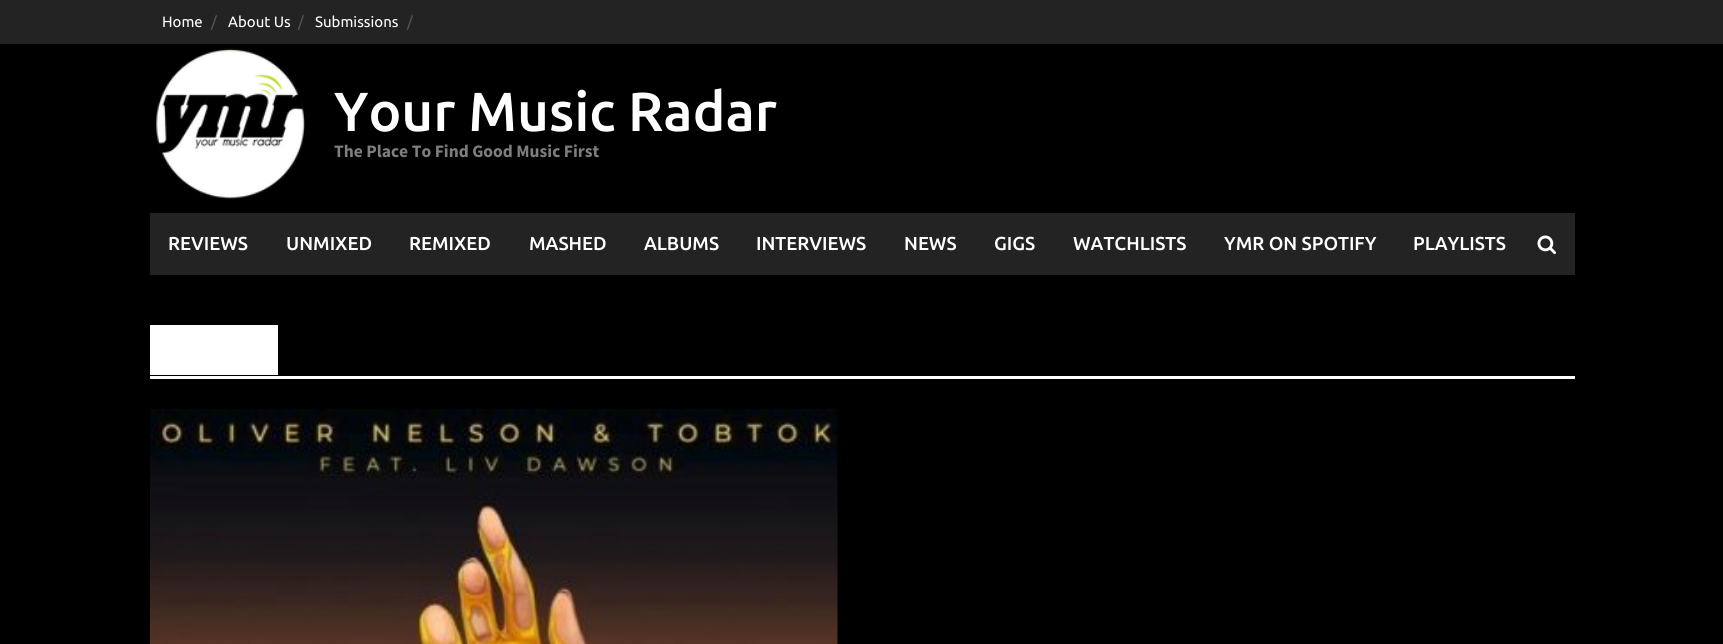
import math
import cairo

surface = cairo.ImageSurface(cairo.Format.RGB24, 1723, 644)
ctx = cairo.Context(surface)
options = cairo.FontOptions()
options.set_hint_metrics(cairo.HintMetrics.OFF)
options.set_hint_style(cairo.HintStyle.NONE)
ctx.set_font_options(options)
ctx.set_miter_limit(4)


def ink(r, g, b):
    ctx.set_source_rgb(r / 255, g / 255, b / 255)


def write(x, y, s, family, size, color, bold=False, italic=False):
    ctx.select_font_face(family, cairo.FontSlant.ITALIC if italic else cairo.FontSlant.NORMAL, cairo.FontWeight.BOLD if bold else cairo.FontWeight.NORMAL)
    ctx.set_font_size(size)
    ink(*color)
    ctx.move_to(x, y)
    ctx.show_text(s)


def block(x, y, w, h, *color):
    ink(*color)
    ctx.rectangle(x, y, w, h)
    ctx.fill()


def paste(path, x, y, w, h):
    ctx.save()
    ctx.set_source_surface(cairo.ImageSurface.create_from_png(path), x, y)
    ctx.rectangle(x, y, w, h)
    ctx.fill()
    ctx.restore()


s1 = dict(family="Ubuntu", size=15, color=(255, 255, 255))
s2 = dict(family="Ubuntu", size=15, color=(85, 85, 85))
s3 = dict(family="Ubuntu Medium", size=55, color=(255, 255, 255))
s4 = dict(family="Source Sans Pro", size=17.5, color=(126, 126, 126), bold=True)
s5 = dict(family="Ubuntu Medium", size=18.75, color=(255, 255, 255))

ink(0, 0, 0)
ctx.paint()
block(0, 0, 1723, 44, 35, 35, 35)
write(162, 27, "Home", **s1)
write(211, 27, "/", **s2)
write(228, 27, "About Us", **s1)
write(298, 27, "/", **s2)
write(315, 27, "Submissions", **s1)
write(407, 27, "/", **s2)
paste("pic1.png", 156, 48, 150, 151)
write(334, 131, "Your Music Radar", **s3)
write(334, 157, "The Place To Find Good Music First", **s4)
block(150, 213, 1425, 62, 35, 35, 35)
write(168, 250, "REVIEWS", **s5)
write(286, 250, "UNMIXED", **s5)
write(409, 250, "REMIXED", **s5)
write(529, 250, "MASHED", **s5)
write(644, 250, "ALBUMS", **s5)
write(756, 250, "INTERVIEWS", **s5)
write(904, 250, "NEWS", **s5)
write(994, 250, "GIGS", **s5)
write(1073, 250, "WATCHLISTS", **s5)
write(1224, 250, "YMR ON SPOTIFY", **s5)
write(1413, 250, "PLAYLISTS", **s5)
paste("pic2.png", 1537, 235, 20, 20)
block(150, 376, 1425, 3, 255, 255, 255)
block(150, 325, 128, 50, 255, 255, 255)
paste("pic3.png", 150, 408, 688, 236)
surface.write_to_png("screenshot.png")
